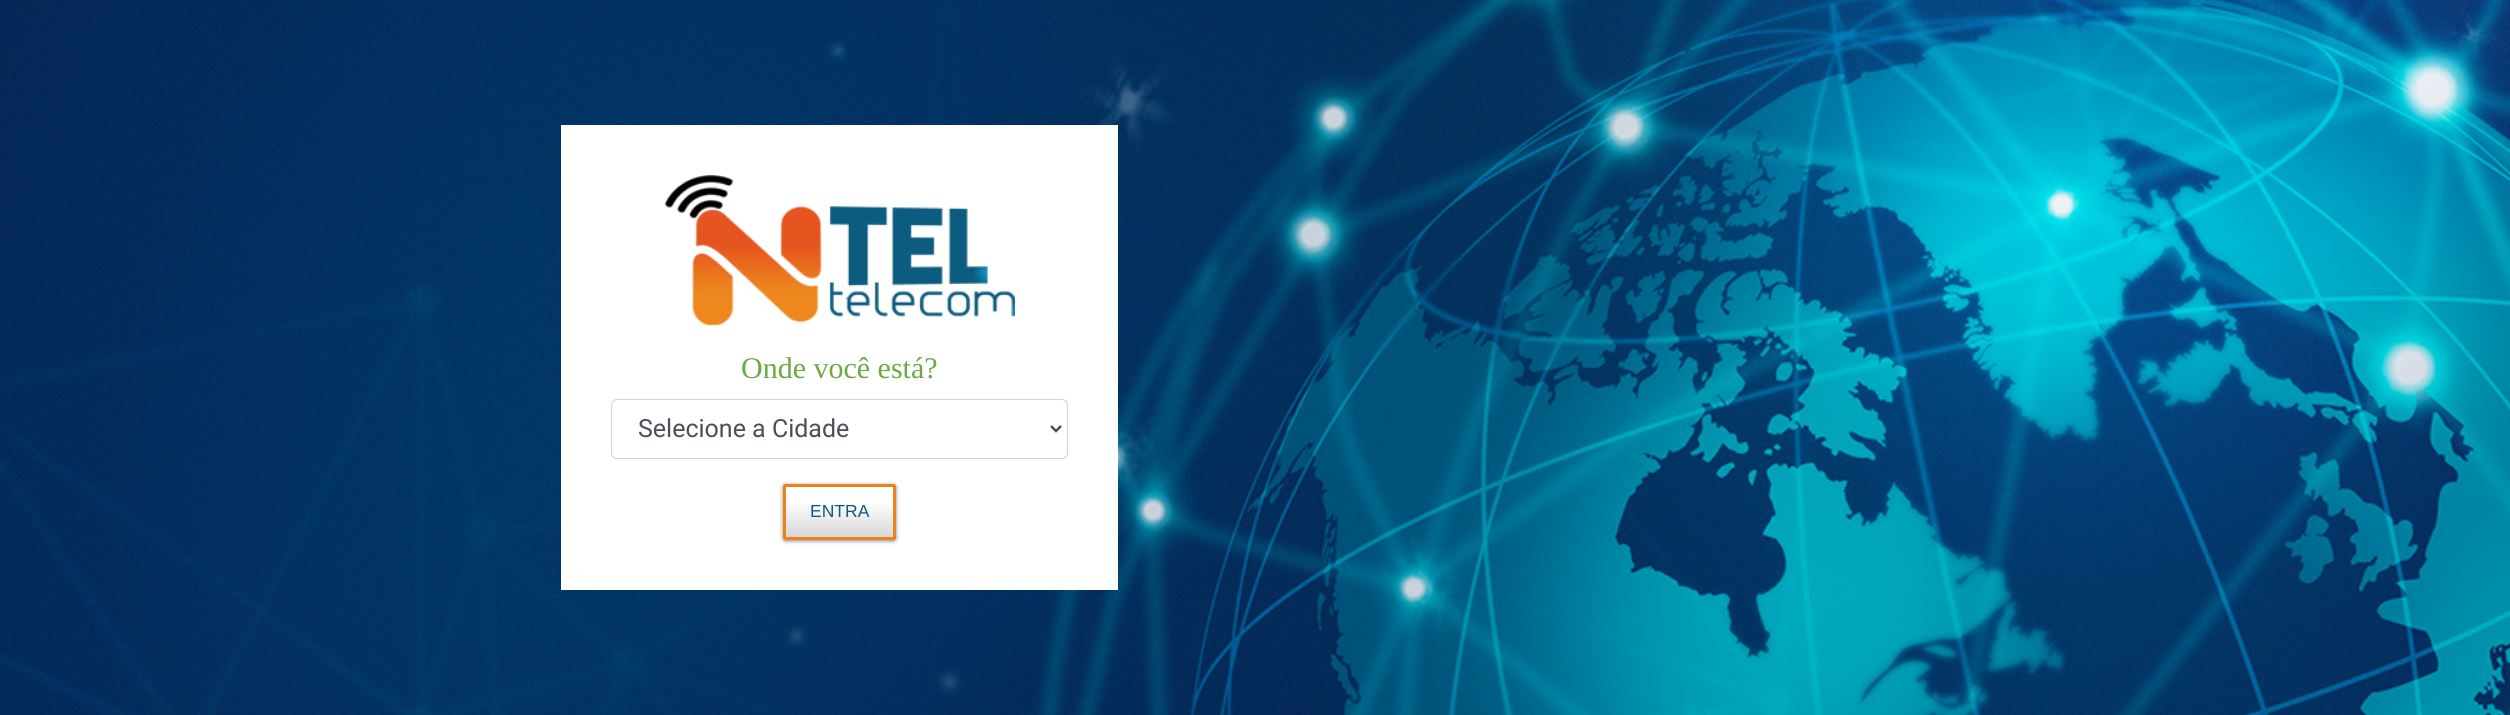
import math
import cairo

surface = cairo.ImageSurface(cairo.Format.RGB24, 2510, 715)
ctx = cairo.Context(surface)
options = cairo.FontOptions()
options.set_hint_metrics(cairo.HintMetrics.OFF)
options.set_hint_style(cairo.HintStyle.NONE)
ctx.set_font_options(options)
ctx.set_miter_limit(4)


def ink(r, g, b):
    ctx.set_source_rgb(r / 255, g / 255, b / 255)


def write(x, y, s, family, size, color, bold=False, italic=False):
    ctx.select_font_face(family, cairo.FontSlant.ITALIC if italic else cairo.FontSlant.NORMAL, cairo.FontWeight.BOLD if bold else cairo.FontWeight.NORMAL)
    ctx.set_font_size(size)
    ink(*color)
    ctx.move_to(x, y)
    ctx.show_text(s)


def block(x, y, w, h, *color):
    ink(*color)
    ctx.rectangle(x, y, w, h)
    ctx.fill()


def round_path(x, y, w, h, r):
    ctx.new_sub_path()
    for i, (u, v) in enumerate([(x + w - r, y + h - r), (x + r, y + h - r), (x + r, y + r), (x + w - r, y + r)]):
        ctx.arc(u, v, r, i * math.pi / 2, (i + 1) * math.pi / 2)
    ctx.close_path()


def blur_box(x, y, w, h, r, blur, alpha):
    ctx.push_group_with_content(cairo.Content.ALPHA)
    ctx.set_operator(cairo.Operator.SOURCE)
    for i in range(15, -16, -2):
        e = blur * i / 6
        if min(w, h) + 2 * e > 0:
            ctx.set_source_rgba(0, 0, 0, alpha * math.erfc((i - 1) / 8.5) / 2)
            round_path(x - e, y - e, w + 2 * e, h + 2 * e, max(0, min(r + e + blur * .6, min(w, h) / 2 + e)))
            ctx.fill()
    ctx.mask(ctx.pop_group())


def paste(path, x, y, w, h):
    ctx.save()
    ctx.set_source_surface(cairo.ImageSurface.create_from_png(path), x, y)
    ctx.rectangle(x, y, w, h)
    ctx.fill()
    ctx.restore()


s1 = dict(family="Liberation Serif", size=30, color=(108, 168, 69))
s2 = dict(family="Roboto", size=25, color=(73, 80, 87))
s3 = dict(family="Liberation Sans", size=17.5, color=(12, 92, 127))

ink(255, 255, 255)
ctx.paint()
paste("pic1.png", 0, 0, 2510, 715)
block(561, 125, 557, 465, 255, 255, 255)
paste("pic2.png", 664, 175, 351, 151)
write(741, 378, "Onde você está?", **s1)
round_path(611.5, 399.5, 456, 59, 5.5)
ink(206, 212, 218)
ctx.set_line_width(1)
ctx.stroke()
ctx.new_path()
ctx.move_to(1051, 426)
ctx.line_to(1056, 431)
ctx.line_to(1061, 426)
ink(73, 80, 87)
ctx.set_line_width(2.5)
ctx.stroke()
write(638, 437, "Selecione a Cidade", **s2)
ink(0, 0, 0)
blur_box(783, 485, 113, 56, 2.5, 2, 0.5)
gradient = cairo.LinearGradient(785, 486, 785, 538)
gradient.add_color_stop_rgba(0, 1, 1, 1, 1)
gradient.add_color_stop_rgba(0.3, 1, 1, 1, 1)
gradient.add_color_stop_rgba(1, 0.839, 0.839, 0.839, 1)
ctx.set_source(gradient)
ctx.rectangle(783, 486, 113, 52)
ctx.fill()
round_path(784.5, 485.5, 110, 53, 1)
ink(236, 129, 30)
ctx.set_line_width(3)
ctx.stroke()
write(810, 517, "ENTRA", **s3)
surface.write_to_png("screenshot.png")
